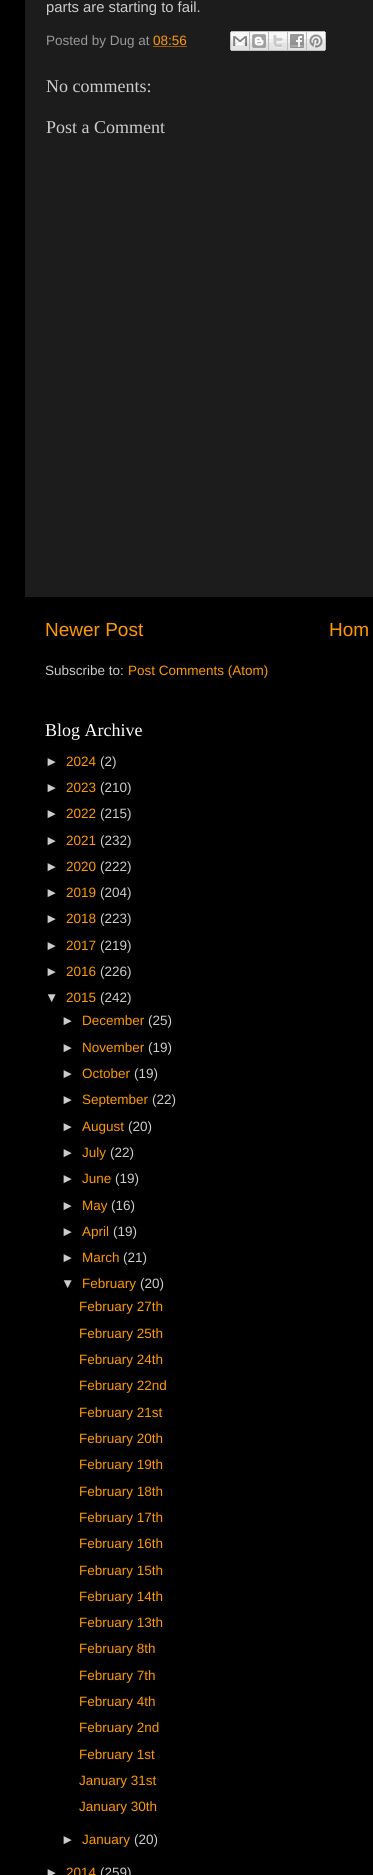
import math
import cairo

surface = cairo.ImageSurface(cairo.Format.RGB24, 373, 1875)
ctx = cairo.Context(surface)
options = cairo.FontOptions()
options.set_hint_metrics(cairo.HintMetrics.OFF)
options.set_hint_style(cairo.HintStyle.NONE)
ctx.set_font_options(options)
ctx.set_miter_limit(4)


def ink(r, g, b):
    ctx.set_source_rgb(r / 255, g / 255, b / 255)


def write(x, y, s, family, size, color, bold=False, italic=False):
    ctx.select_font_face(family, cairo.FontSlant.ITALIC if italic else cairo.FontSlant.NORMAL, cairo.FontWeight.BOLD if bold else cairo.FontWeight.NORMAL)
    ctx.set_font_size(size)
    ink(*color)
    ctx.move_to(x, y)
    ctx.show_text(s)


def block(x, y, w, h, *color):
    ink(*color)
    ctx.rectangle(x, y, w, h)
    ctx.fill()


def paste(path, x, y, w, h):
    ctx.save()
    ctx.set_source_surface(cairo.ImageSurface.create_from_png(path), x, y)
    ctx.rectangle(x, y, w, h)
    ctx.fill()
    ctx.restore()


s1 = dict(family="Liberation Sans", size=14.8, color=(204, 204, 204))
s2 = dict(family="Liberation Sans", size=13.5, color=(153, 153, 153))
s3 = dict(family="Liberation Sans", size=13.5, color=(255, 153, 0))
s4 = dict(family="Liberation Serif", size=18, color=(204, 204, 204))
s5 = dict(family="Liberation Sans", size=19, color=(255, 153, 0))
s6 = dict(family="Liberation Sans", size=13.5, color=(204, 204, 204))
s7 = dict(family="Liberation Serif", size=18, color=(255, 255, 255))

ink(0, 0, 0)
ctx.paint()
block(25, 0, 348, 597, 28, 28, 28)
write(46, 12, "parts are starting to fail.", **s1)
write(46, 45, "Posted by Dug at", **s2)
write(153, 45, "08:56", **s3)
ctx.new_path()
ctx.move_to(153.5, 46.5)
ctx.line_to(187, 46.5)
ctx.set_line_width(1)
ctx.set_dash([1, 1])
ctx.stroke()
paste("pic1.png", 230, 31, 20, 20)
paste("pic2.png", 250, 31, 19, 20)
paste("pic3.png", 269, 31, 19, 20)
paste("pic4.png", 288, 31, 19, 20)
paste("pic5.png", 307, 31, 19, 20)
write(46, 92, "No comments:", **s4)
write(46, 133, "Post a Comment", **s4)
write(45, 636, "Newer Post", **s5)
write(329, 636, "Hom", **s5)
write(45, 675, "Subscribe to:", **s6)
write(128, 675, "Post Comments (Atom)", **s3)
write(45, 736, "Blog Archive", **s7)
write(45, 766, "►", **s6)
write(66, 766, "2024", **s3)
write(100, 766, "(2)", **s6)
write(45, 792, "►", **s6)
write(66, 792, "2023", **s3)
write(100, 792, "(210)", **s6)
write(45, 818, "►", **s6)
write(66, 818, "2022", **s3)
write(100, 818, "(215)", **s6)
write(45, 845, "►", **s6)
write(66, 845, "2021", **s3)
write(100, 845, "(232)", **s6)
write(45, 871, "►", **s6)
write(66, 871, "2020", **s3)
write(100, 871, "(222)", **s6)
write(45, 897, "►", **s6)
write(66, 897, "2019", **s3)
write(100, 897, "(204)", **s6)
write(45, 923, "►", **s6)
write(66, 923, "2018", **s3)
write(100, 923, "(223)", **s6)
write(45, 950, "►", **s6)
write(66, 950, "2017", **s3)
write(100, 950, "(219)", **s6)
write(45, 976, "►", **s6)
write(66, 976, "2016", **s3)
write(100, 976, "(226)", **s6)
write(45, 1002, "▼", **s6)
write(66, 1002, "2015", **s3)
write(100, 1002, "(242)", **s6)
write(61, 1025, "►", **s6)
write(82, 1025, "December", **s3)
write(148, 1025, "(25)", **s6)
write(61, 1052, "►", **s6)
write(82, 1052, "November", **s3)
write(148, 1052, "(19)", **s6)
write(61, 1078, "►", **s6)
write(82, 1078, "October", **s3)
write(134, 1078, "(19)", **s6)
write(61, 1104, "►", **s6)
write(82, 1104, "September", **s3)
write(152, 1104, "(22)", **s6)
write(61, 1131, "►", **s6)
write(82, 1131, "August", **s3)
write(128, 1131, "(20)", **s6)
write(61, 1157, "►", **s6)
write(82, 1157, "July", **s3)
write(110, 1157, "(22)", **s6)
write(61, 1183, "►", **s6)
write(82, 1183, "June", **s3)
write(115, 1183, "(19)", **s6)
write(61, 1210, "►", **s6)
write(82, 1210, "May", **s3)
write(111, 1210, "(16)", **s6)
write(61, 1236, "►", **s6)
write(82, 1236, "April", **s3)
write(113, 1236, "(19)", **s6)
write(61, 1262, "►", **s6)
write(82, 1262, "March", **s3)
write(123, 1262, "(21)", **s6)
write(61, 1288, "▼", **s6)
write(82, 1288, "February", **s3)
write(140, 1288, "(20)", **s6)
write(79, 1311, "February 27th", **s3)
write(79, 1338, "February 25th", **s3)
write(79, 1364, "February 24th", **s3)
write(79, 1390, "February 22nd", **s3)
write(79, 1417, "February 21st", **s3)
write(79, 1443, "February 20th", **s3)
write(79, 1469, "February 19th", **s3)
write(79, 1496, "February 18th", **s3)
write(79, 1522, "February 17th", **s3)
write(79, 1548, "February 16th", **s3)
write(79, 1575, "February 15th", **s3)
write(79, 1601, "February 14th", **s3)
write(79, 1627, "February 13th", **s3)
write(79, 1653, "February 8th", **s3)
write(79, 1680, "February 7th", **s3)
write(79, 1706, "February 4th", **s3)
write(79, 1732, "February 2nd", **s3)
write(79, 1759, "February 1st", **s3)
write(79, 1785, "January 31st", **s3)
write(79, 1811, "January 30th", **s3)
write(61, 1844, "►", **s6)
write(82, 1844, "January", **s3)
write(134, 1844, "(20)", **s6)
write(45, 1877, "►", **s6)
write(66, 1877, "2014", **s3)
write(100, 1877, "(259)", **s6)
surface.write_to_png("screenshot.png")
